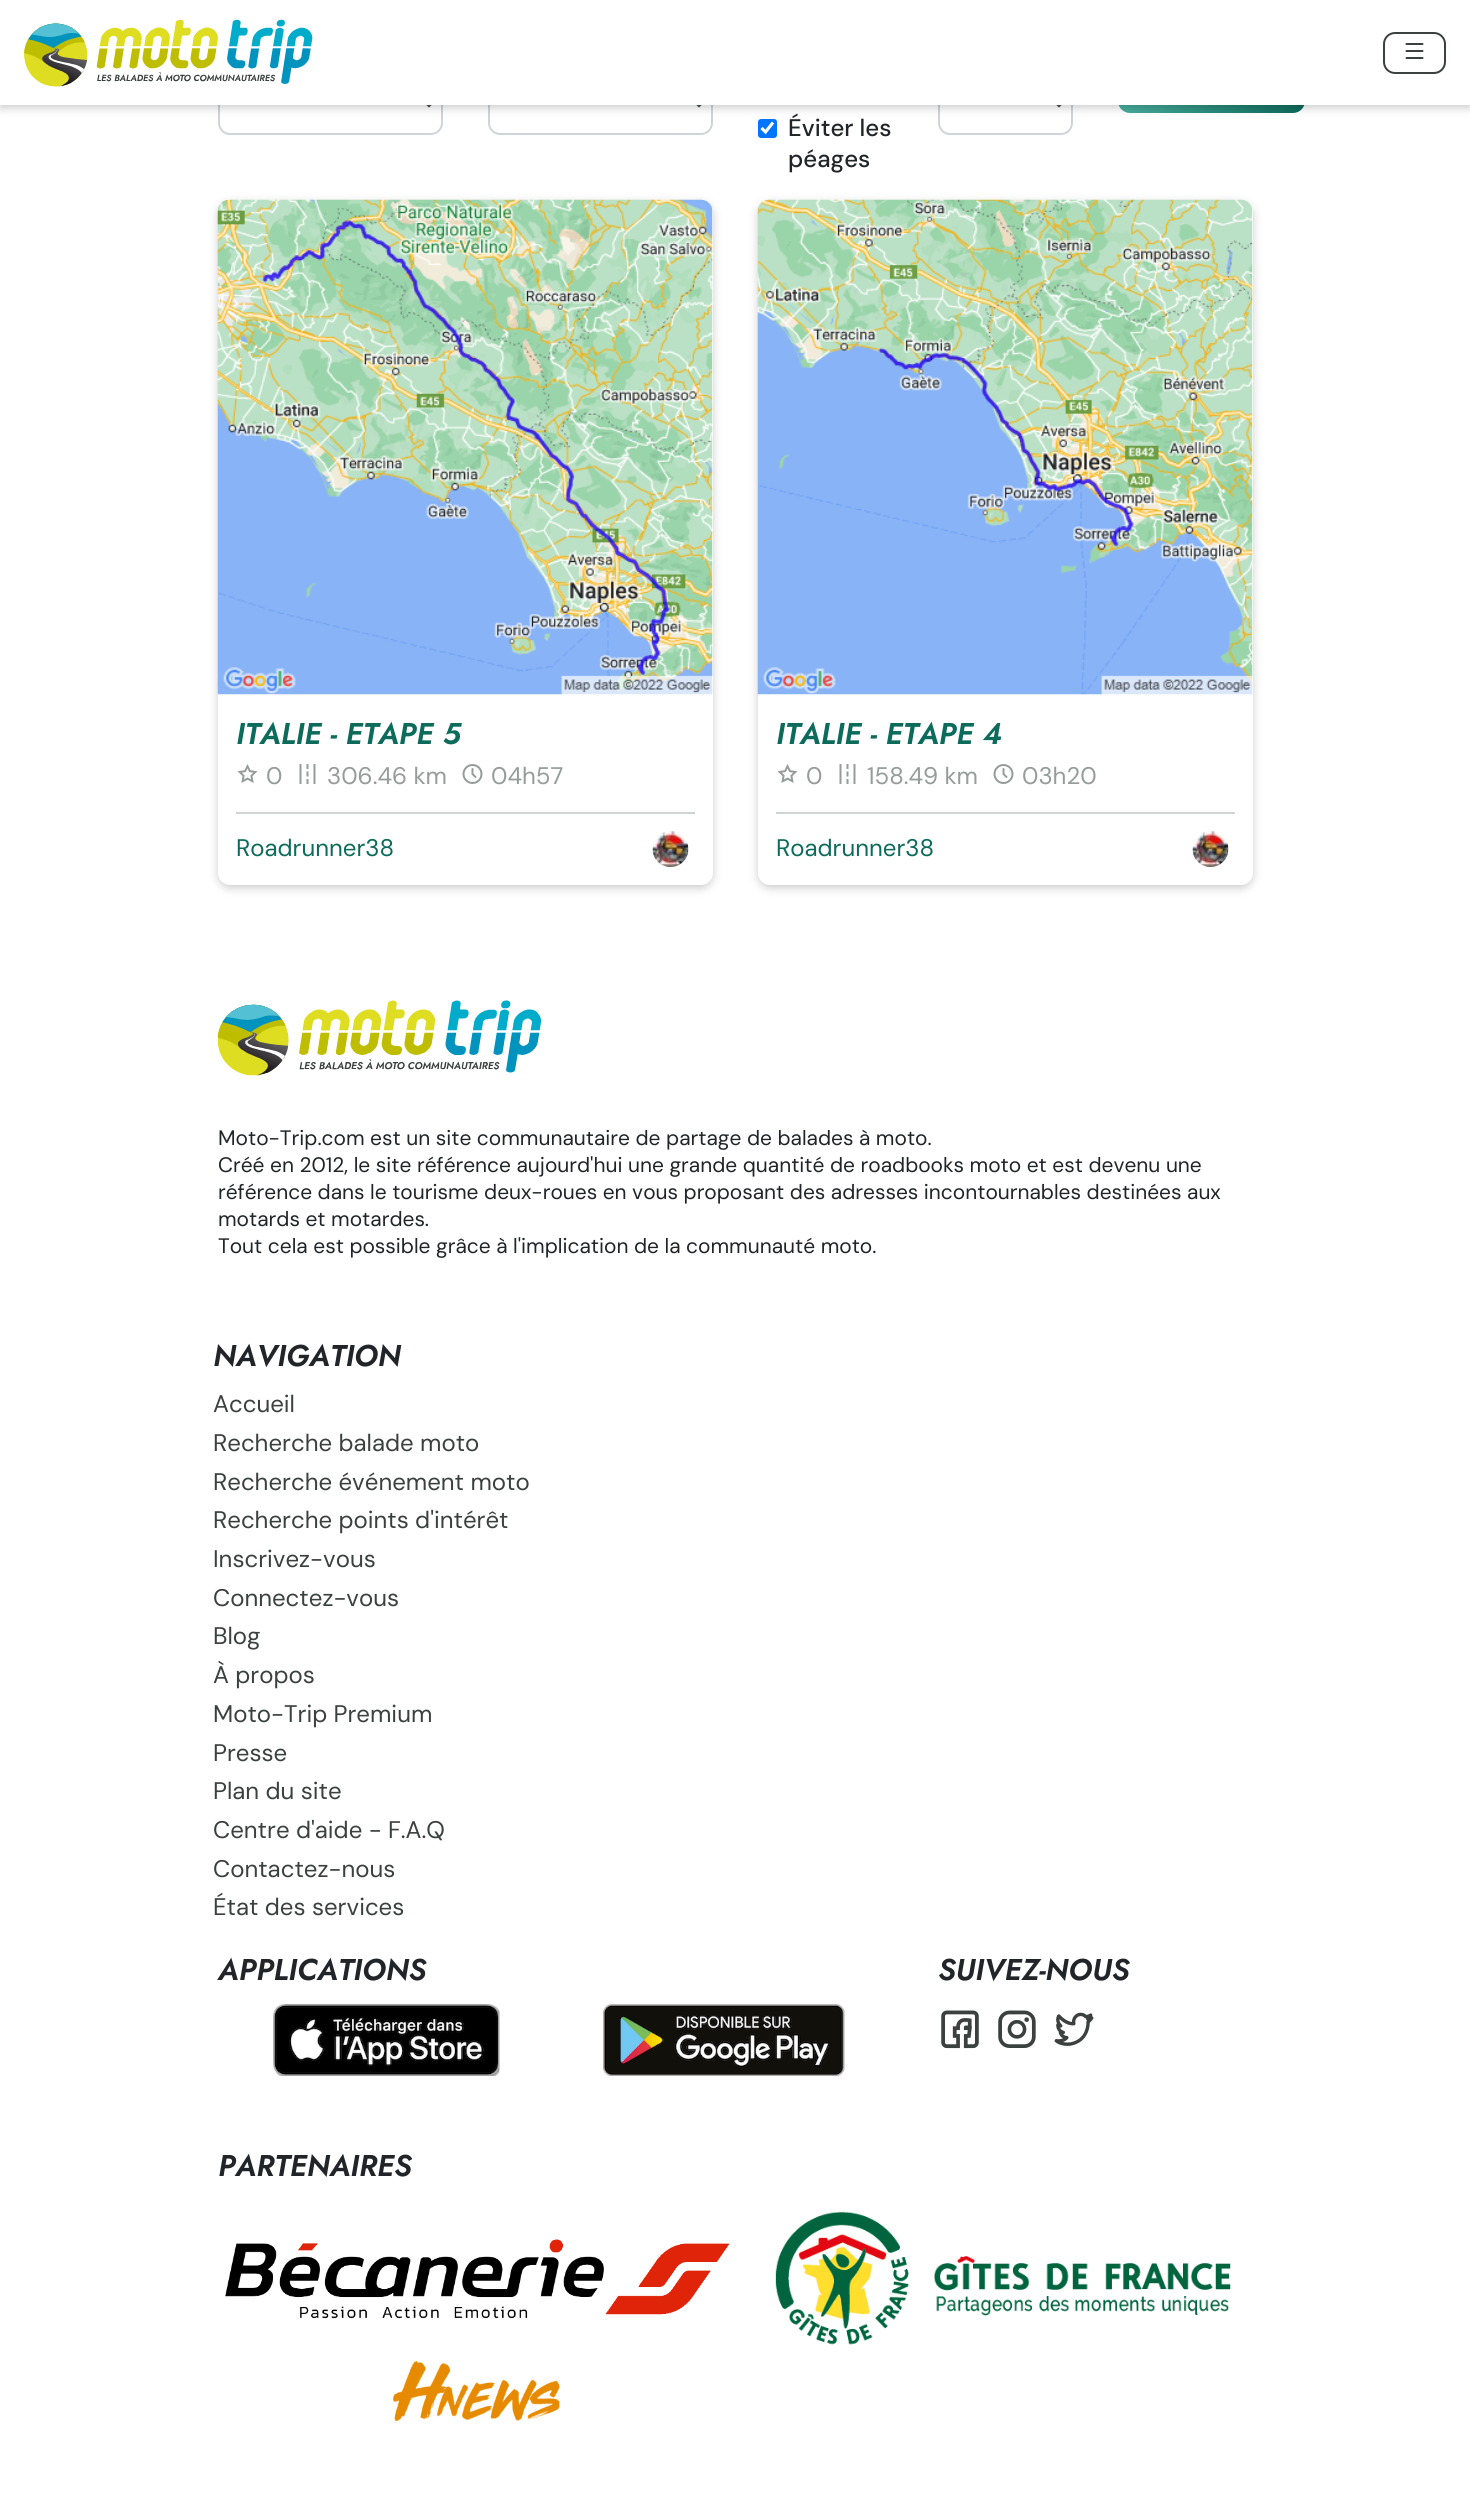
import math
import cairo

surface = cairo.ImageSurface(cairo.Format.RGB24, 1470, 2496)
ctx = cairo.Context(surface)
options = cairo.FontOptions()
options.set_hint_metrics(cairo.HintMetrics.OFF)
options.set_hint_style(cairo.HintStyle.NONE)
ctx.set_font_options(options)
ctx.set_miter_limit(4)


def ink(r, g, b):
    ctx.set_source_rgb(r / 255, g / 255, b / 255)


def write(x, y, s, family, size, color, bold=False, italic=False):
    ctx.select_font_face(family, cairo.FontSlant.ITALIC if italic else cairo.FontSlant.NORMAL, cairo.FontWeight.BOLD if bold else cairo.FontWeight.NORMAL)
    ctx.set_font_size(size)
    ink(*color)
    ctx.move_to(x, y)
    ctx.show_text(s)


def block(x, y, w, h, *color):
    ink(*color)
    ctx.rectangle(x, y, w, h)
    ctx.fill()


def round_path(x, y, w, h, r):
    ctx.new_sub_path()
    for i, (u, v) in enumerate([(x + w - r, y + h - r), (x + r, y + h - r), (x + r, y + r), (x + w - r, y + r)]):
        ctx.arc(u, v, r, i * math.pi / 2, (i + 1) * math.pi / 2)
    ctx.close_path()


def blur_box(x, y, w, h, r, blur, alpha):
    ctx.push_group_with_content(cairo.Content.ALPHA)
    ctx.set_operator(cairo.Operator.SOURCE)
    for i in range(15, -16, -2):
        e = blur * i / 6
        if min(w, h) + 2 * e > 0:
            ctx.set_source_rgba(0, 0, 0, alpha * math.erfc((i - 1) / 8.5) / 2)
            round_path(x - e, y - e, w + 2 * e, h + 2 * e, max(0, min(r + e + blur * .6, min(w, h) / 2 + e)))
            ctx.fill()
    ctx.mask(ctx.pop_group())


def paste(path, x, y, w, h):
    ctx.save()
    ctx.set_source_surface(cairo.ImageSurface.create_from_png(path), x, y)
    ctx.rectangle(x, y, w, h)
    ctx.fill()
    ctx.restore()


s1 = dict(family="DM Sans Medium", size=24, color=(33, 37, 41))
s2 = dict(family="Jost SemiBold", size=30, color=(12, 107, 91), italic=True)
s3 = dict(family="DM Sans", size=24, color=(149, 156, 154))
s4 = dict(family="DM Sans", size=24, color=(12, 107, 91))
s5 = dict(family="DM Sans", size=20.9, color=(33, 37, 41))
s6 = dict(family="Jost SemiBold", size=30, color=(33, 37, 41), italic=True)
s7 = dict(family="DM Sans", size=24, color=(59, 65, 63))

ink(255, 255, 255)
ctx.paint()
round_path(219, 72, 223, 62, 11)
ink(206, 212, 218)
ctx.stroke()
ctx.new_path()
ctx.move_to(423, 99.5)
ctx.line_to(429, 105.5)
ctx.line_to(435, 99.5)
ink(73, 80, 87)
ctx.set_line_width(3)
ctx.stroke()
round_path(489, 72, 223, 62, 11)
ink(206, 212, 218)
ctx.set_line_width(2)
ctx.stroke()
ctx.new_path()
ctx.move_to(693, 99.5)
ctx.line_to(699, 105.5)
ctx.line_to(705, 99.5)
ink(73, 80, 87)
ctx.set_line_width(3)
ctx.stroke()
round_path(939, 72, 133, 62, 11)
ink(206, 212, 218)
ctx.set_line_width(2)
ctx.stroke()
ctx.new_path()
ctx.move_to(1053, 99.5)
ctx.line_to(1059, 105.5)
ctx.line_to(1065, 99.5)
ink(73, 80, 87)
ctx.set_line_width(3)
ctx.stroke()
gradient = cairo.LinearGradient(1125, 36, 1297, 127)
gradient.add_color_stop_rgba(0, 0.325, 0.733, 0.667, 1)
gradient.add_color_stop_rgba(1, 0.047, 0.42, 0.357, 1)
ctx.set_source(gradient)
round_path(1118, 51, 187, 62, 12)
ctx.fill()
ink(0, 117, 255)
round_path(758, 119, 19, 19, 3)
ctx.fill()
ctx.new_path()
ctx.move_to(761.5, 128)
ctx.line_to(765.5, 132)
ctx.line_to(773, 122.5)
ink(255, 255, 255)
ctx.set_line_width(3.1)
ctx.stroke()
ink(0, 0, 0)
blur_box(0, 3, 1470, 105, 0, 4.5, 0.2)
block(0, 0, 1470, 105, 255, 255, 255)
paste("pic1.png", 24, 19, 289, 68)
round_path(1384, 33, 61, 40, 11)
ink(59, 65, 63)
ctx.set_line_width(2)
ctx.stroke()
paste("pic2.png", 1405, 43, 19, 16)
write(788, 136, "Éviter les", **s1)
write(788, 167, "péages", **s1)
ink(0, 0, 0)
blur_box(218, 203, 495, 685, 12, 4.5, 0.2)
ink(255, 255, 255)
round_path(218, 200, 495, 685, 12)
ctx.fill()
paste("pic3.png", 217, 199, 496, 496)
write(236, 744, "ITALIE - ETAPE 5", **s2)
paste("pic4.png", 237, 764, 21, 19)
write(266, 784, "0", **s3)
paste("pic5.png", 299, 764, 17, 20)
write(327, 784, "306.46 km", **s3)
paste("pic6.png", 462, 764, 21, 20)
write(491, 784, "04h57", **s3)
block(236, 812, 459, 2, 207, 212, 211)
write(236, 856, "Roadrunner38", **s4)
paste("pic7.png", 652, 831, 37, 36)
ink(0, 0, 0)
blur_box(758, 203, 495, 685, 12, 4.5, 0.2)
ink(255, 255, 255)
round_path(758, 200, 495, 685, 12)
ctx.fill()
paste("pic8.png", 757, 199, 496, 496)
write(776, 744, "ITALIE - ETAPE 4", **s2)
paste("pic4.png", 777, 764, 21, 19)
write(806, 784, "0", **s3)
paste("pic5.png", 839, 764, 17, 20)
write(867, 784, "158.49 km", **s3)
paste("pic6.png", 993, 764, 21, 20)
write(1022, 784, "03h20", **s3)
block(776, 812, 459, 2, 207, 212, 211)
write(776, 856, "Roadrunner38", **s4)
paste("pic9.png", 1192, 831, 37, 36)
paste("pic10.png", 218, 1000, 324, 76)
write(218, 1145, "Moto-Trip.com est un site communautaire de partage de balades à moto.", **s5)
write(218, 1172, "Créé en 2012, le site référence aujourd'hui une grande quantité de roadbooks moto et est devenu une", **s5)
write(218, 1199, "référence dans le tourisme deux-roues en vous proposant des adresses incontournables destinées aux", **s5)
write(218, 1226, "motards et motardes.", **s5)
write(218, 1253, "Tout cela est possible grâce à l'implication de la communauté moto.", **s5)
write(213, 1366, "NAVIGATION", **s6)
write(213, 1412, "Accueil", **s7)
write(213, 1451, "Recherche balade moto", **s7)
write(213, 1490, "Recherche événement moto", **s7)
write(213, 1528, "Recherche points d'intérêt", **s7)
write(213, 1567, "Inscrivez-vous", **s7)
write(213, 1606, "Connectez-vous", **s7)
write(213, 1644, "Blog", **s7)
write(213, 1683, "À propos", **s7)
write(213, 1722, "Moto-Trip Premium", **s7)
write(213, 1761, "Presse", **s7)
write(213, 1799, "Plan du site", **s7)
write(213, 1838, "Centre d'aide - F.A.Q", **s7)
write(213, 1877, "Contactez-nous", **s7)
write(213, 1915, "État des services", **s7)
write(218, 1980, "APPLICATIONS", **s6)
paste("pic11.png", 273, 2004, 227, 72)
paste("pic12.png", 603, 2004, 242, 72)
write(938, 1980, "SUIVEZ-NOUS", **s6)
paste("pic13.png", 941, 2010, 38, 39)
paste("pic14.png", 998, 2010, 38, 38)
paste("pic15.png", 1054, 2012, 40, 34)
write(218, 2176, "PARTENAIRES", **s6)
paste("pic16.png", 225, 2239, 505, 80)
paste("pic17.png", 775, 2211, 456, 134)
paste("pic18.png", 393, 2361, 167, 60)
surface.write_to_png("screenshot.png")
